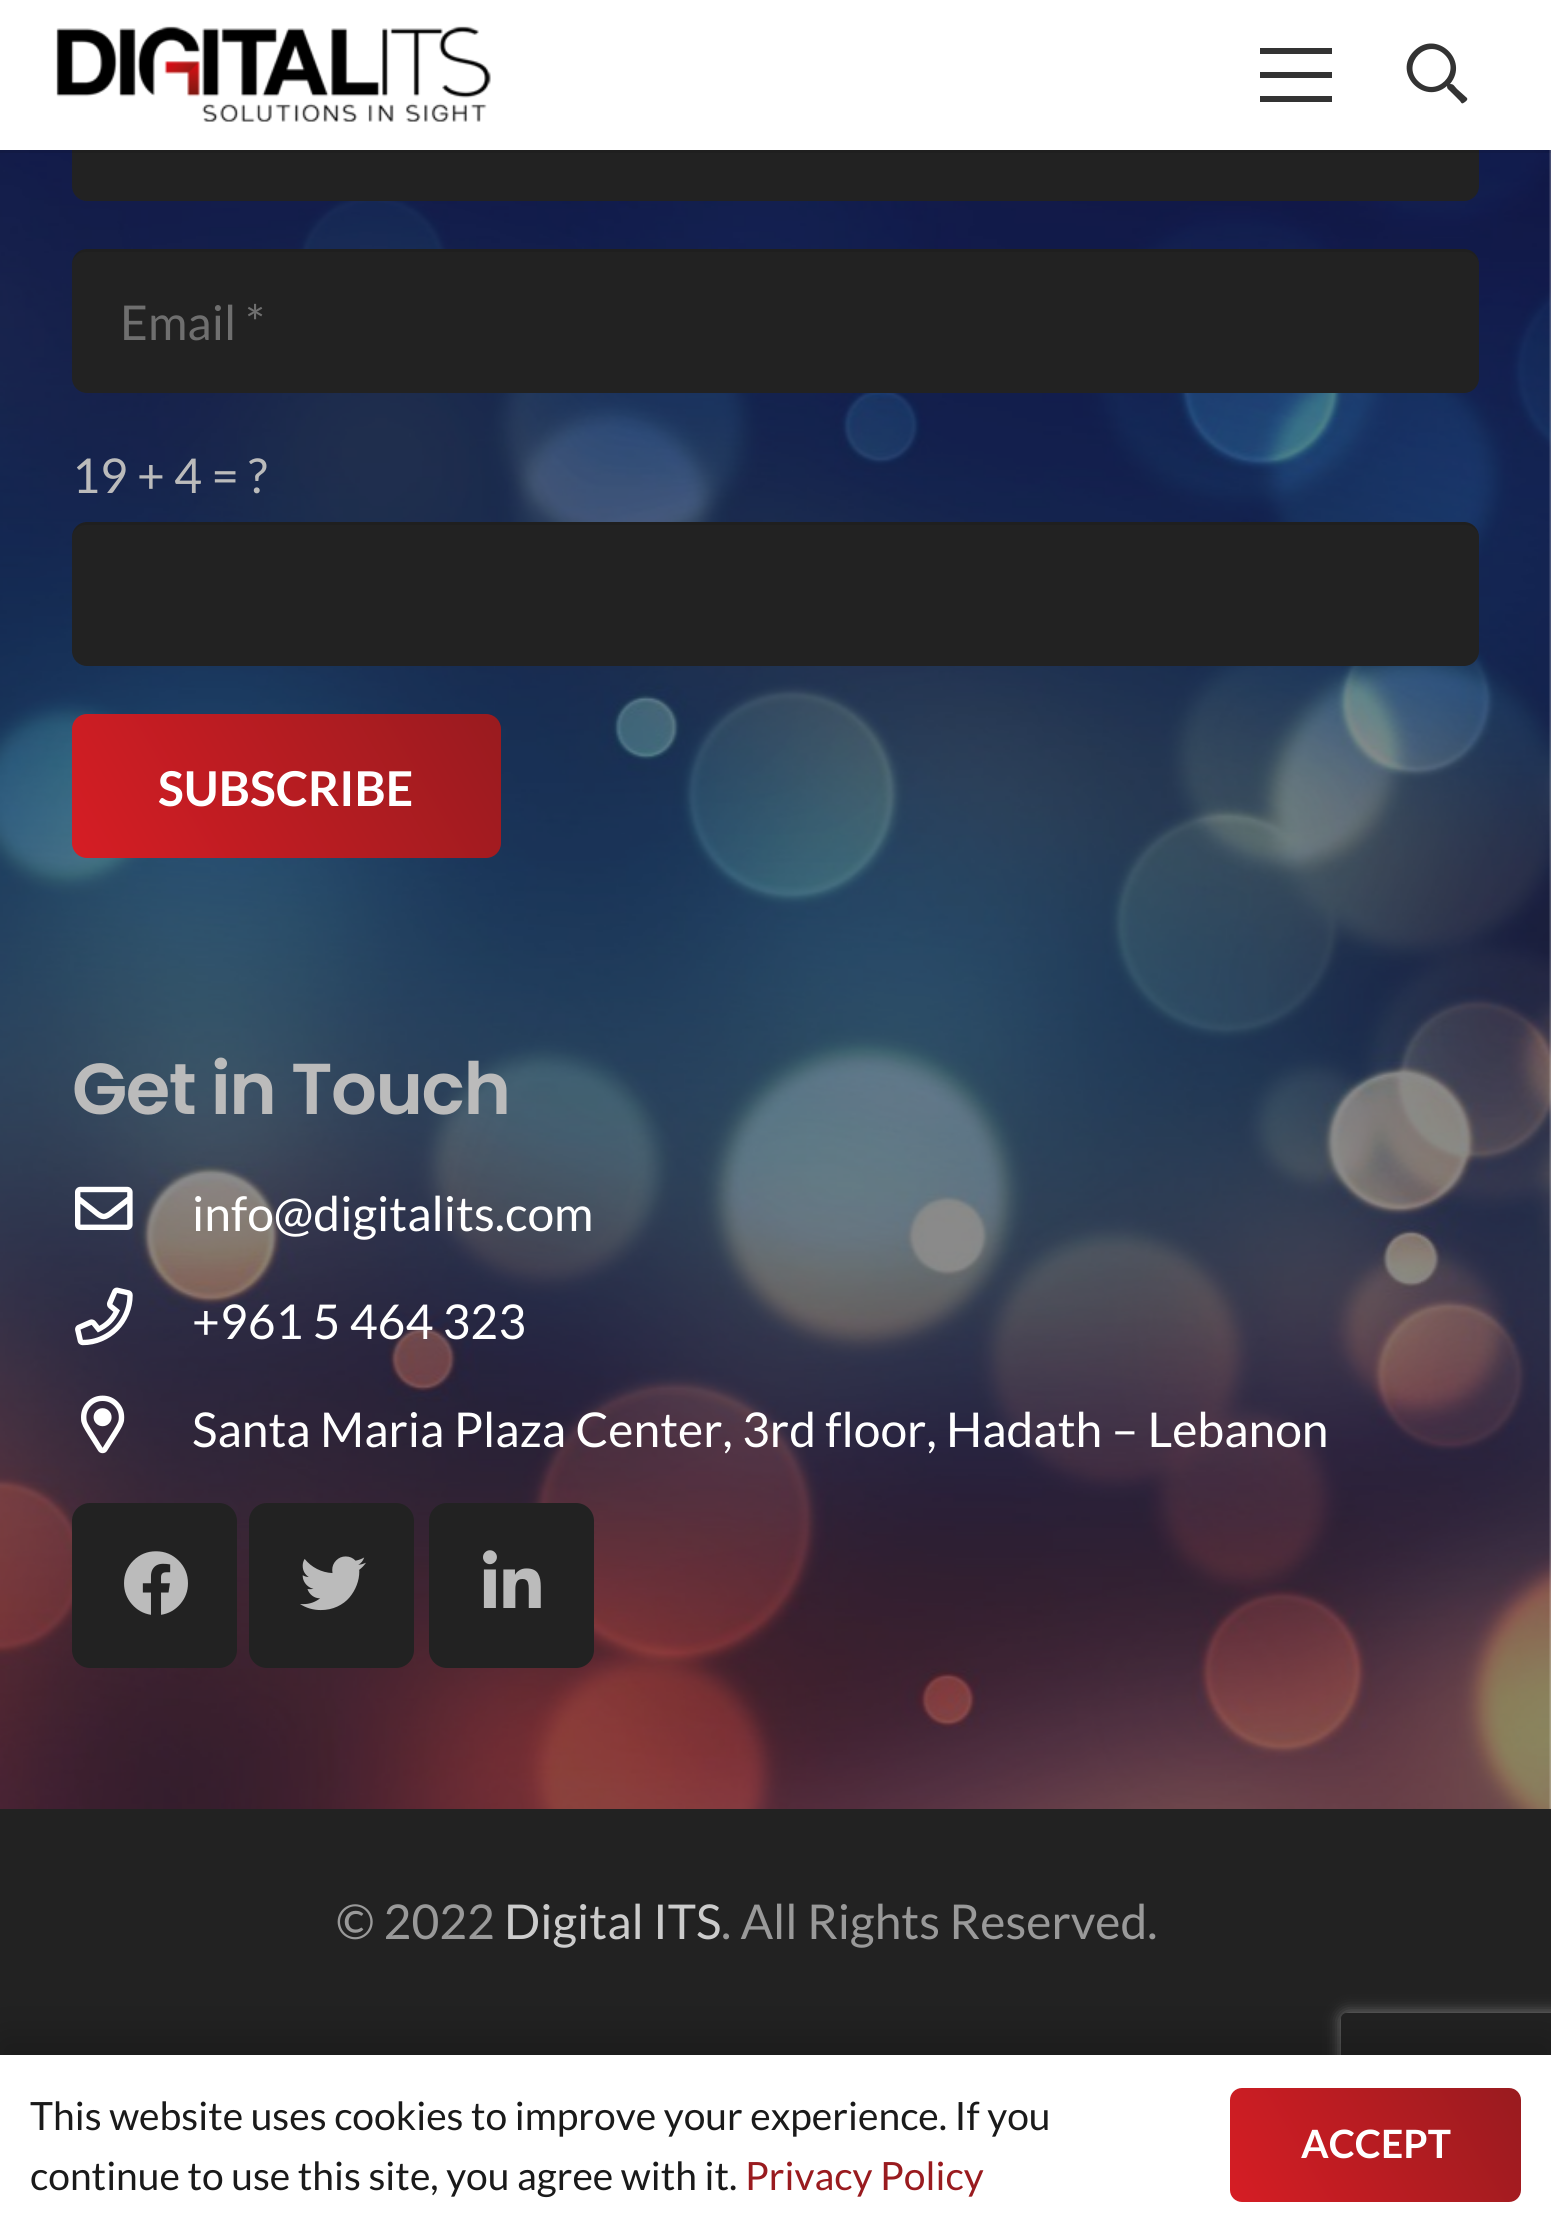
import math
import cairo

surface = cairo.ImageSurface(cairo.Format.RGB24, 1551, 2235)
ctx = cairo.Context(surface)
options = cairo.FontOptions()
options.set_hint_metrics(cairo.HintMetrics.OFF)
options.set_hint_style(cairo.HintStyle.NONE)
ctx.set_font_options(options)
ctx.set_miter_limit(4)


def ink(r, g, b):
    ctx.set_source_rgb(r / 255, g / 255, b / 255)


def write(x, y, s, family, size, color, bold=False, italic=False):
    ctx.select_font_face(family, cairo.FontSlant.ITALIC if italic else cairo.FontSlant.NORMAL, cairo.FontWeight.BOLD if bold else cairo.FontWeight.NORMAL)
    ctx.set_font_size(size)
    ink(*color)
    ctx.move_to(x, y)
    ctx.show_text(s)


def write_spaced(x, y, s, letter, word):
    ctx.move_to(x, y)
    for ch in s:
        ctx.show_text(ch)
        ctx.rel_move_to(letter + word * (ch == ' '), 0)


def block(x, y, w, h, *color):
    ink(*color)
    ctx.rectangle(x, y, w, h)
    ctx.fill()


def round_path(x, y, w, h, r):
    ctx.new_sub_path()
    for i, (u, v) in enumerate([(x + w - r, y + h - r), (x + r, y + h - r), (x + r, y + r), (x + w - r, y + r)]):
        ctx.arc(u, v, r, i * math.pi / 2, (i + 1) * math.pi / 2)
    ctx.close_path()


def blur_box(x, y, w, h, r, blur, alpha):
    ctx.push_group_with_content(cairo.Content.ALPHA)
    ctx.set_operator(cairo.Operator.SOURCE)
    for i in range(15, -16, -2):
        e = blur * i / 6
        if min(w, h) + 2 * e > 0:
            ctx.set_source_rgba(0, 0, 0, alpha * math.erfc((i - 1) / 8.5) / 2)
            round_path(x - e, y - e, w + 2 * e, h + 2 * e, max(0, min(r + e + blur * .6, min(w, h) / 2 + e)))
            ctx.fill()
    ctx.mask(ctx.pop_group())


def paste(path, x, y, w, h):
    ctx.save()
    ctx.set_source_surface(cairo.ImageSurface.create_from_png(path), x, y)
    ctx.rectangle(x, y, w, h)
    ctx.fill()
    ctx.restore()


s1 = dict(family="Lato", size=48, color=(111, 111, 111))
s2 = dict(family="Lato", size=48, color=(187, 187, 187))
s3 = dict(family="Lato", size=48, color=(255, 255, 255), bold=True)
s4 = dict(family="Lato", size=48, color=(255, 255, 255))
s5 = dict(family="Lato", size=48, color=(153, 153, 153))
s6 = dict(family="Lato", size=48, color=(204, 204, 204))
s7 = dict(family="Lato", size=39, color=(26, 26, 26))
s8 = dict(family="Lato", size=39, color=(153, 27, 31))
s9 = dict(family="Lato", size=39, color=(255, 255, 255), bold=True)

ink(255, 255, 255)
ctx.paint()
paste("pic2.png", 0, 150, 1551, 1659)
ink(34, 34, 34)
round_path(72, 57, 1407, 144, 15)
ctx.fill()
ctx.set_source_rgba(0, 0, 0, 0.08)
ctx.rectangle(0, 150, 1551, 3)
ctx.fill()
block(72, 57, 1407, 93, 255, 255, 255)
paste("pic1.png", 56, 26, 435, 96)
block(1260, 72, 72, 6, 51, 51, 51)
block(1260, 48, 72, 6, 51, 51, 51)
block(1260, 96, 72, 6, 51, 51, 51)
ctx.new_path()
ctx.move_to(1467, 98)
ctx.curve_to(1468, 100, 1466, 101, 1465, 102)
ctx.curve_to(1462, 104, 1462, 104, 1460, 101)
ctx.line_to(1450, 91)
ctx.curve_to(1448, 89, 1447, 89, 1447, 86)
ctx.curve_to(1424, 106, 1392, 73, 1414, 51)
ctx.curve_to(1436, 29, 1470, 60, 1450, 84)
ctx.curve_to(1454, 84, 1454, 86, 1457, 89)
ctx.close_path()
ctx.move_to(1418, 81)
ctx.curve_to(1436, 99, 1462, 72, 1445, 55)
ctx.curve_to(1427, 37, 1401, 64, 1418, 81)
ctx.close_path()
ctx.fill()
ink(34, 34, 34)
round_path(72, 249, 1407, 144, 15)
ctx.fill()
ctx.set_source_rgba(0, 0, 0, 0.08)
ctx.new_path()
ctx.move_to(86, 252)
ctx.line_to(1465, 252)
ctx.curve_to(1473, 252, 1479, 258, 1479, 266)
ctx.curve_to(1479, 257, 1474, 249, 1464, 249)
ctx.line_to(87, 249)
ctx.curve_to(77, 249, 72, 257, 72, 266)
ctx.curve_to(72, 258, 78, 252, 86, 252)
ctx.close_path()
ctx.fill()
write(120, 340, "Email *", **s1)
write(72, 493, "19 + 4 = ?", **s2)
ink(34, 34, 34)
round_path(72, 522, 1407, 144, 15)
ctx.fill()
ctx.set_source_rgba(0, 0, 0, 0.08)
ctx.new_path()
ctx.move_to(86, 525)
ctx.line_to(1465, 525)
ctx.curve_to(1473, 525, 1479, 531, 1479, 539)
ctx.curve_to(1479, 530, 1474, 522, 1464, 522)
ctx.line_to(87, 522)
ctx.curve_to(77, 522, 72, 530, 72, 539)
ctx.curve_to(72, 531, 78, 525, 86, 525)
ctx.close_path()
ctx.fill()
gradient = cairo.LinearGradient(94, 897, 479, 675)
gradient.add_color_stop_rgba(0, 0.839, 0.114, 0.141, 1)
gradient.add_color_stop_rgba(1, 0.6, 0.106, 0.122, 1)
ctx.set_source(gradient)
round_path(72, 714, 429, 144, 15)
ctx.fill()
write(158, 806, "SUBSCRIBE", **s3)
ctx.select_font_face("Poppins SemiBold")
ctx.set_font_size(72)
ink(187, 187, 187)
write_spaced(72, 1114, "Get in Touch", -1.5, 0)
paste("pic3.png", 75, 1186, 58, 44)
write(192, 1231, "info@digitalits.com", **s4)
paste("pic4.png", 75, 1287, 58, 59)
write(192, 1339, "+961 5 464 323", **s4)
paste("pic5.png", 81, 1395, 44, 59)
write(192, 1447, "Santa Maria Plaza Center, 3rd floor, Hadath – Lebanon", **s4)
ink(34, 34, 34)
round_path(72, 1503, 165, 165, 18)
ctx.fill()
paste("pic6.png", 124, 1551, 64, 64)
round_path(249, 1503, 165, 165, 18)
ctx.fill()
paste("pic7.png", 300, 1556, 66, 55)
round_path(429, 1503, 165, 165, 18)
ctx.fill()
paste("pic8.png", 483, 1550, 58, 58)
block(0, 1809, 1551, 246, 34, 34, 34)
write(336, 1939, "© 2022", **s5)
write(504, 1939, "Digital ITS", **s6)
write(721, 1939, ". All Rights Reserved.", **s5)
ctx.save()
ctx.set_fill_rule(cairo.FillRule.EVEN_ODD)
ctx.new_path()
ctx.move_to(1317, 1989)
ctx.line_to(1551, 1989)
ctx.line_to(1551, 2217)
ctx.line_to(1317, 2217)
ctx.close_path()
ctx.move_to(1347, 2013)
ctx.line_to(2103, 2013)
ctx.curve_to(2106.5, 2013, 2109, 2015.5, 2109, 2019)
ctx.line_to(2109, 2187)
ctx.curve_to(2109, 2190.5, 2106.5, 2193, 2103, 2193)
ctx.line_to(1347, 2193)
ctx.curve_to(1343.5, 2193, 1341, 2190.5, 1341, 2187)
ctx.line_to(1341, 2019)
ctx.curve_to(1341, 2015.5, 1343.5, 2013, 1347, 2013)
ctx.close_path()
ctx.clip()
ink(128, 128, 128)
blur_box(1341, 2013, 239, 180, 6, 7.5, 1)
ctx.restore()
ink(0, 0, 0)
blur_box(0, 2040, 1551, 180, 0, 22.5, 0.25)
block(0, 2055, 1551, 180, 255, 255, 255)
write(30, 2130, "This website uses cookies to improve your experience. If you", **s7)
write(30, 2190, "continue to use this site, you agree with it.", **s7)
write(745, 2190, "Privacy Policy", **s8)
gradient = cairo.LinearGradient(1242, 2222, 1509, 2068)
gradient.add_color_stop_rgba(0, 0.839, 0.114, 0.141, 1)
gradient.add_color_stop_rgba(1, 0.6, 0.106, 0.122, 1)
ctx.set_source(gradient)
round_path(1230, 2088, 291, 114, 12)
ctx.fill()
write(1301, 2158, "ACCEPT", **s9)
surface.write_to_png("screenshot.png")
